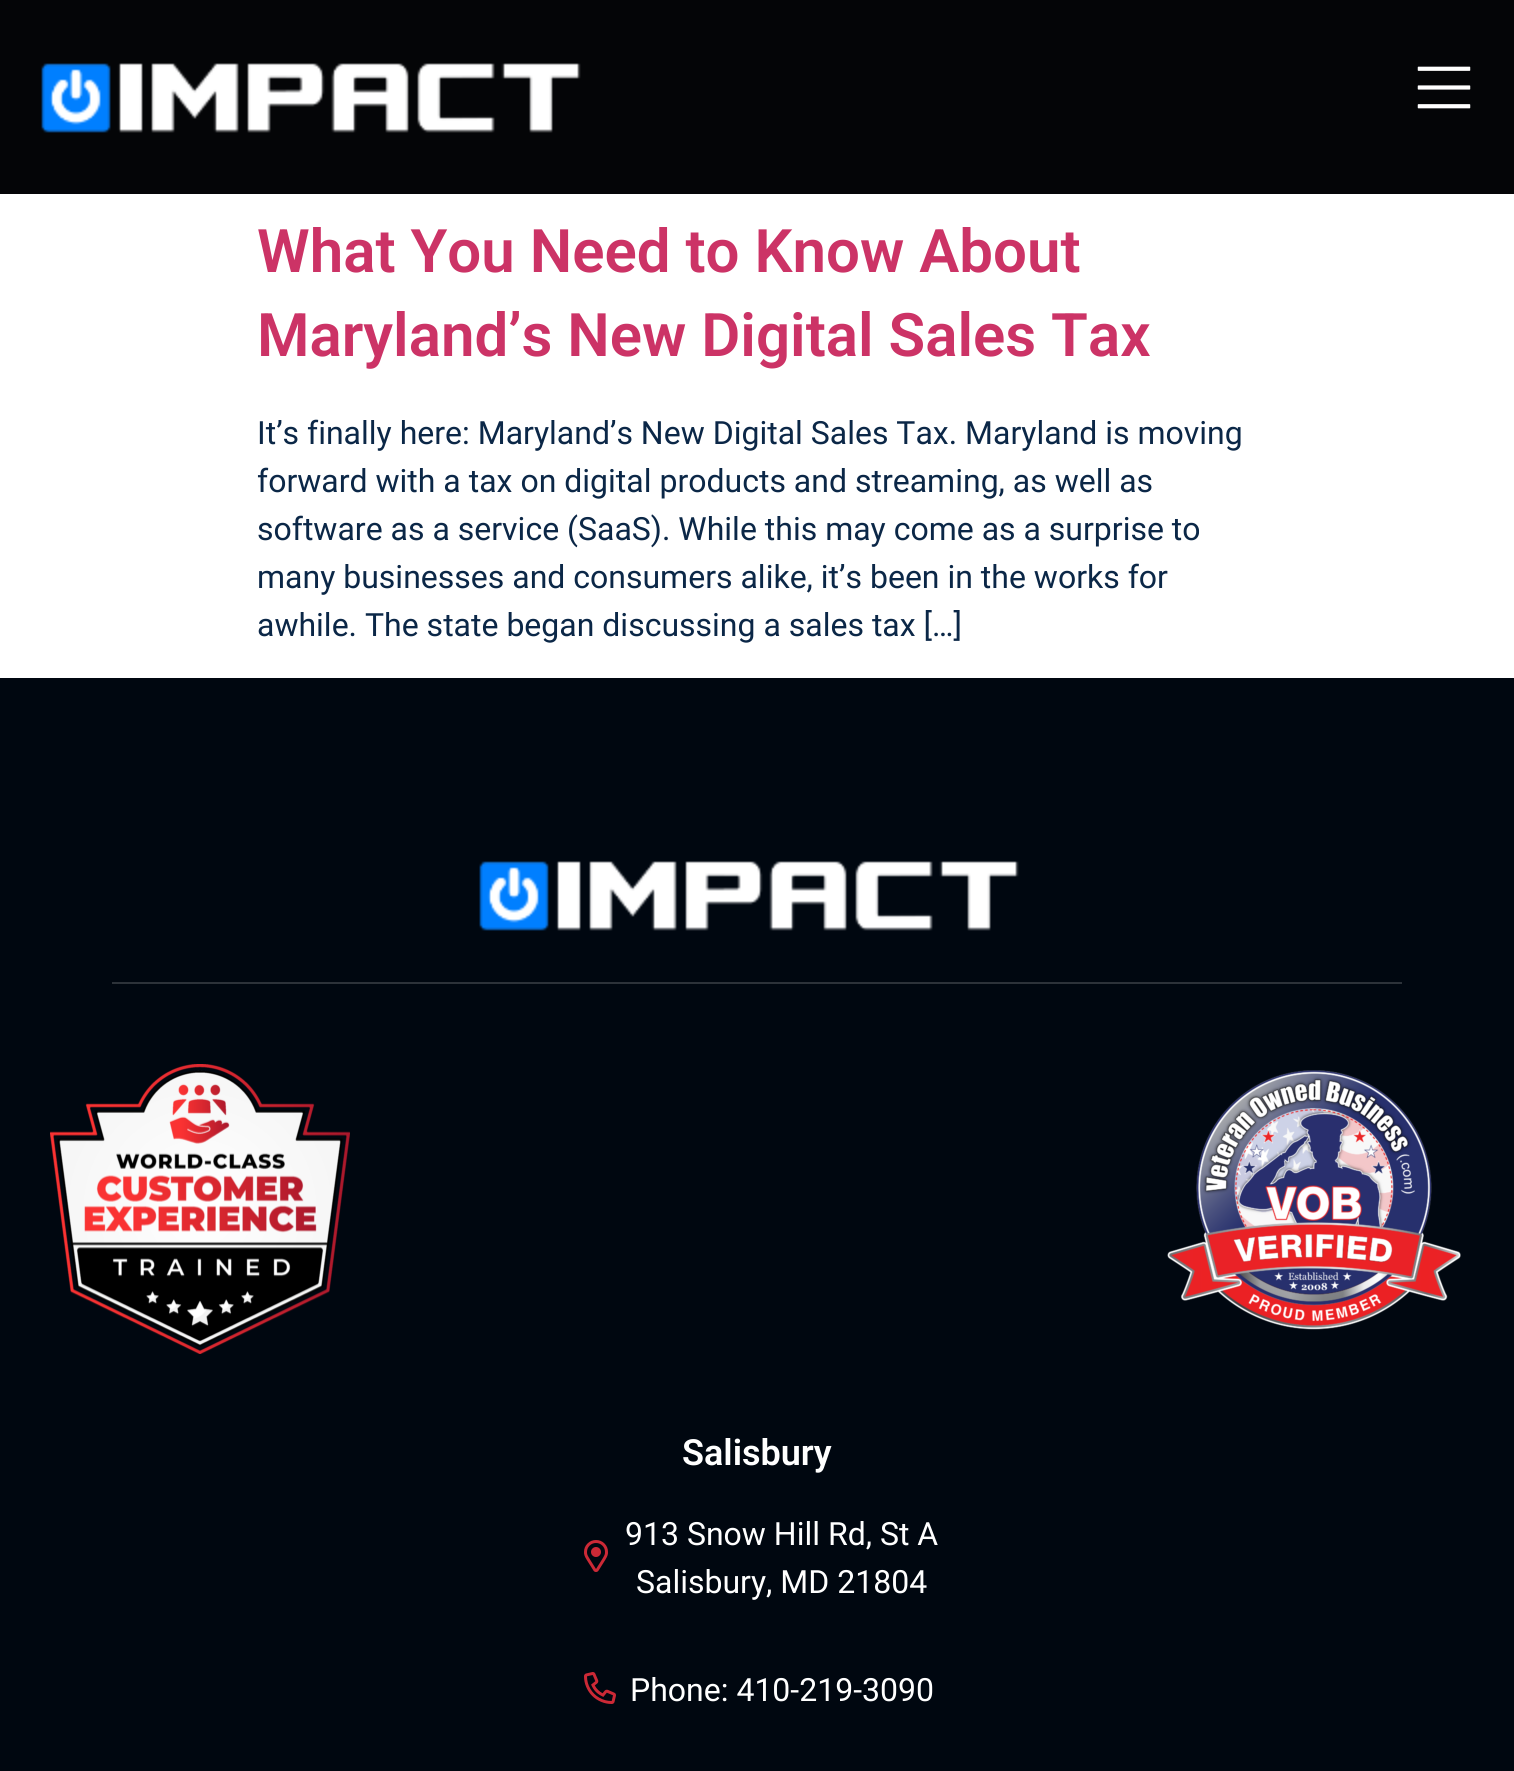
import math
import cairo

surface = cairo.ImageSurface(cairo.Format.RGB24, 1514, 1771)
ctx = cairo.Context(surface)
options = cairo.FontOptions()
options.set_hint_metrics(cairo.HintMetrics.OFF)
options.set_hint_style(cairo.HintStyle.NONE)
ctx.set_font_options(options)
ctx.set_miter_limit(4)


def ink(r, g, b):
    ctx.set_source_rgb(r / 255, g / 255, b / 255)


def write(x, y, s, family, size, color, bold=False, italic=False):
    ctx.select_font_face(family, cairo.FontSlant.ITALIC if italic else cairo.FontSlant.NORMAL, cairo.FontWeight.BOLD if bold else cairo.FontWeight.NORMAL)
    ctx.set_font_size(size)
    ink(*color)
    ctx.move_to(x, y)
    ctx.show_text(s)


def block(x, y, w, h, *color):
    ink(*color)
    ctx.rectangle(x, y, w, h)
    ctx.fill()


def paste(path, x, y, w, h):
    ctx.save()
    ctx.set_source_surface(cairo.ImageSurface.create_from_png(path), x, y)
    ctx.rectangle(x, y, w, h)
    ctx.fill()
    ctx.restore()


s1 = dict(family="Roboto SemiBold", size=60, color=(204, 51, 102))
s2 = dict(family="Roboto", size=32, color=(11, 39, 71))
s3 = dict(family="Roboto SemiBold", size=36, color=(255, 255, 255))
s4 = dict(family="Roboto", size=32, color=(255, 255, 255))

ink(255, 255, 255)
ctx.paint()
block(0, 0, 1514, 194, 4, 5, 7)
paste("pic1.png", 41, 63, 540, 70)
paste("pic2.png", 1417, 66, 54, 43)
write(257, 272, "What You Need to Know About", **s1)
write(257, 356, "Maryland’s New Digital Sales Tax", **s1)
write(257, 444, "It’s finally here: Maryland’s New Digital Sales Tax. Maryland is moving", **s2)
write(257, 492, "forward with a tax on digital products and streaming, as well as", **s2)
write(257, 540, "software as a service (SaaS). While this may come as a surprise to", **s2)
write(257, 588, "many businesses and consumers alike, it’s been in the works for", **s2)
write(257, 636, "awhile. The state began discussing a sales tax […]", **s2)
block(0, 678, 1514, 1093, 0, 7, 16)
paste("pic3.png", 479, 861, 540, 70)
block(112, 982, 1290, 2, 44, 50, 57)
paste("pic4.png", 50, 1064, 300, 290)
paste("pic5.png", 1167, 1070, 294, 260)
write(682, 1465, "Salisbury", **s3)
paste("pic6.png", 584, 1540, 24, 32)
write(625, 1545, "913 Snow Hill Rd, St A", **s4)
write(636, 1593, "Salisbury, MD 21804", **s4)
paste("pic7.png", 584, 1672, 32, 32)
write(630, 1701, "Phone: 410-219-3090", **s4)
surface.write_to_png("screenshot.png")
